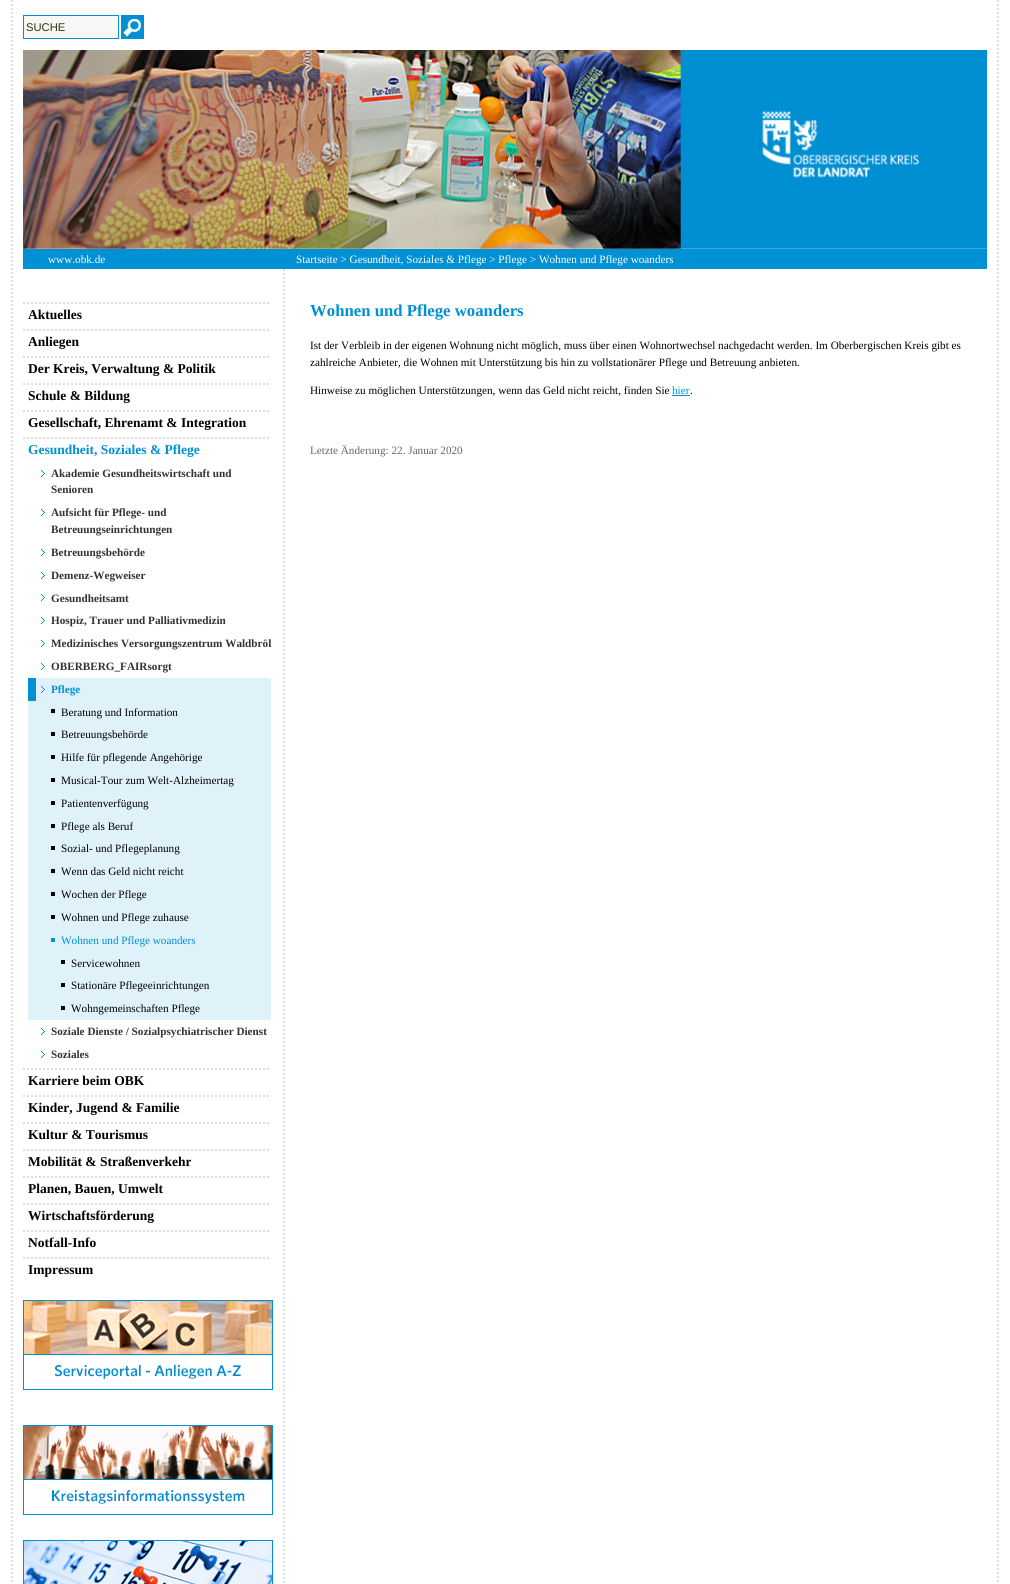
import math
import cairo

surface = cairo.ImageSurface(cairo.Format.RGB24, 1010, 1584)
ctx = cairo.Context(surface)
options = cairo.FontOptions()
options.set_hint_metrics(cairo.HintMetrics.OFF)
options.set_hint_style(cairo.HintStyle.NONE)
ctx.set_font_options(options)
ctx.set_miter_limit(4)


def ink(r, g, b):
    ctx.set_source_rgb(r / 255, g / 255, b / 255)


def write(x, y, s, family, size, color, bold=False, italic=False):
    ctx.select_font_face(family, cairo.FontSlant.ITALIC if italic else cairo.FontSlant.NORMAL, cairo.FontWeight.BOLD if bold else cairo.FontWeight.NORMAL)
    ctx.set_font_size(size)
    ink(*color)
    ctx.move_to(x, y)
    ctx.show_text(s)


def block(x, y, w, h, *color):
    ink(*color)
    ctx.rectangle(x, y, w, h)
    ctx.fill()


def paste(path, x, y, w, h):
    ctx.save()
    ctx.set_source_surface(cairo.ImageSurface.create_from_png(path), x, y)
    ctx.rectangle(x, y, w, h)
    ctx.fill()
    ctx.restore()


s1 = dict(family="Liberation Sans", size=11.2, color=(51, 51, 0))
s2 = dict(family="Liberation Serif", size=11.2, color=(255, 255, 255))
s3 = dict(family="Liberation Serif", size=13.5, color=(0, 0, 0), bold=True)
s4 = dict(family="Liberation Serif", size=13.5, color=(0, 144, 212), bold=True)
s5 = dict(family="Liberation Serif", size=11.2, color=(51, 51, 51), bold=True)
s6 = dict(family="Liberation Serif", size=11.2, color=(0, 144, 212), bold=True)
s7 = dict(family="Liberation Serif", size=11.2, color=(0, 0, 0))
s8 = dict(family="Liberation Serif", size=11.2, color=(0, 144, 212))
s9 = dict(family="Liberation Serif", size=16.75, color=(0, 144, 212), bold=True)
s10 = dict(family="Liberation Serif", size=11.2, color=(102, 102, 102))

ink(255, 255, 255)
ctx.paint()
ctx.new_path()
ctx.move_to(998, 0)
ctx.line_to(998, 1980)
ink(221, 221, 221)
ctx.set_dash([2, 2])
ctx.stroke()
ctx.new_path()
ctx.move_to(12, 0)
ctx.line_to(12, 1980)
ctx.stroke()
ink(246, 247, 247)
ctx.rectangle(23.5, 15.5, 95, 23)
ctx.fill_preserve()
ink(0, 144, 212)
ctx.set_line_width(1)
ctx.set_dash([])
ctx.stroke()
write(26, 31, "SUCHE", **s1)
block(121, 15, 23, 1, 0, 144, 212)
paste("pic1.png", 121, 16, 23, 23)
paste("pic2.png", 23, 50, 964, 199)
block(23, 249, 964, 20, 0, 144, 212)
write(48, 263, "www.obk.de", **s2)
write(296, 263, "Startseite > Gesundheit, Soziales & Pflege > Pflege > Wohnen und Pflege woanders", **s2)
ctx.new_path()
ctx.move_to(23, 303)
ctx.line_to(271, 303)
ink(221, 221, 221)
ctx.set_line_width(2)
ctx.set_dash([2, 2])
ctx.stroke()
write(28, 319, "Aktuelles", **s3)
ctx.new_path()
ctx.move_to(23, 330)
ctx.line_to(271, 330)
ink(221, 221, 221)
ctx.stroke()
write(28, 346, "Anliegen", **s3)
ctx.new_path()
ctx.move_to(23, 357)
ctx.line_to(271, 357)
ink(221, 221, 221)
ctx.stroke()
write(28, 373, "Der Kreis, Verwaltung & Politik", **s3)
ctx.new_path()
ctx.move_to(23, 384)
ctx.line_to(271, 384)
ink(221, 221, 221)
ctx.stroke()
write(28, 400, "Schule & Bildung", **s3)
ctx.new_path()
ctx.move_to(23, 411)
ctx.line_to(271, 411)
ink(221, 221, 221)
ctx.stroke()
write(28, 427, "Gesellschaft, Ehrenamt & Integration", **s3)
ctx.new_path()
ctx.move_to(23, 438)
ctx.line_to(271, 438)
ink(221, 221, 221)
ctx.stroke()
write(28, 454, "Gesundheit, Soziales & Pflege", **s4)
paste("pic3.png", 41, 470, 4, 7)
write(51, 477, "Akademie Gesundheitswirtschaft und", **s5)
write(51, 493, "Senioren", **s5)
paste("pic3.png", 41, 509, 4, 7)
write(51, 516, "Aufsicht für Pflege- und", **s5)
write(51, 533, "Betreuungseinrichtungen", **s5)
paste("pic3.png", 41, 549, 4, 7)
write(51, 556, "Betreuungsbehörde", **s5)
paste("pic3.png", 41, 572, 4, 7)
write(51, 579, "Demenz-Wegweiser", **s5)
paste("pic3.png", 41, 594, 4, 7)
write(51, 602, "Gesundheitsamt", **s5)
paste("pic3.png", 41, 617, 4, 7)
write(51, 624, "Hospiz, Trauer und Palliativmedizin", **s5)
paste("pic3.png", 41, 640, 4, 7)
write(51, 647, "Medizinisches Versorgungszentrum Waldbröl", **s5)
paste("pic3.png", 41, 663, 4, 7)
write(51, 670, "OBERBERG_FAIRsorgt", **s5)
block(36, 678, 235, 23, 223, 241, 249)
paste("pic4.png", 41, 686, 4, 7)
block(28, 678, 8, 23, 0, 144, 212)
write(51, 693, "Pflege", **s6)
block(28, 701, 243, 251, 223, 241, 249)
block(51, 709, 4, 4, 1, 0, 1)
write(61, 716, "Beratung und Information", **s7)
block(51, 732, 4, 4, 1, 0, 1)
write(61, 738, "Betreuungsbehörde", **s7)
block(51, 755, 4, 4, 1, 0, 1)
write(61, 761, "Hilfe für pflegende Angehörige", **s7)
block(51, 778, 4, 4, 1, 0, 1)
write(61, 784, "Musical-Tour zum Welt-Alzheimertag", **s7)
block(51, 801, 4, 4, 1, 0, 1)
write(61, 807, "Patientenverfügung", **s7)
block(51, 824, 4, 4, 1, 0, 1)
write(61, 830, "Pflege als Beruf", **s7)
block(51, 846, 4, 4, 1, 0, 1)
write(61, 852, "Sozial- und Pflegeplanung", **s7)
block(51, 869, 4, 4, 1, 0, 1)
write(61, 875, "Wenn das Geld nicht reicht", **s7)
block(51, 892, 4, 4, 1, 0, 1)
write(61, 898, "Wochen der Pflege", **s7)
block(51, 915, 4, 4, 1, 0, 1)
write(61, 921, "Wohnen und Pflege zuhause", **s7)
block(28, 952, 10, 68, 223, 241, 249)
block(51, 938, 4, 4, 0, 144, 212)
write(61, 944, "Wohnen und Pflege woanders", **s8)
block(38, 952, 233, 68, 223, 241, 249)
block(61, 960, 4, 4, 1, 0, 1)
write(71, 967, "Servicewohnen", **s7)
block(61, 983, 4, 4, 1, 0, 1)
write(71, 989, "Stationäre Pflegeeinrichtungen", **s7)
block(61, 1006, 4, 4, 1, 0, 1)
write(71, 1012, "Wohngemeinschaften Pflege", **s7)
paste("pic3.png", 41, 1028, 4, 7)
write(51, 1035, "Soziale Dienste / Sozialpsychiatrischer Dienst", **s5)
paste("pic3.png", 41, 1051, 4, 7)
write(51, 1058, "Soziales", **s5)
ctx.new_path()
ctx.move_to(23, 1069)
ctx.line_to(271, 1069)
ink(221, 221, 221)
ctx.stroke()
write(28, 1085, "Karriere beim OBK", **s3)
ctx.new_path()
ctx.move_to(23, 1096)
ctx.line_to(271, 1096)
ink(221, 221, 221)
ctx.stroke()
write(28, 1112, "Kinder, Jugend & Familie", **s3)
ctx.new_path()
ctx.move_to(23, 1123)
ctx.line_to(271, 1123)
ink(221, 221, 221)
ctx.stroke()
write(28, 1139, "Kultur & Tourismus", **s3)
ctx.new_path()
ctx.move_to(23, 1150)
ctx.line_to(271, 1150)
ink(221, 221, 221)
ctx.stroke()
write(28, 1166, "Mobilität & Straßenverkehr", **s3)
ctx.new_path()
ctx.move_to(23, 1177)
ctx.line_to(271, 1177)
ink(221, 221, 221)
ctx.stroke()
write(28, 1193, "Planen, Bauen, Umwelt", **s3)
ctx.new_path()
ctx.move_to(23, 1204)
ctx.line_to(271, 1204)
ink(221, 221, 221)
ctx.stroke()
write(28, 1220, "Wirtschaftsförderung", **s3)
ctx.new_path()
ctx.move_to(23, 1231)
ctx.line_to(271, 1231)
ink(221, 221, 221)
ctx.stroke()
write(28, 1247, "Notfall-Info", **s3)
ctx.new_path()
ctx.move_to(23, 1258)
ctx.line_to(271, 1258)
ink(221, 221, 221)
ctx.stroke()
write(28, 1274, "Impressum", **s3)
paste("pic5.png", 23, 1300, 250, 90)
paste("pic6.png", 23, 1425, 250, 90)
paste("pic7.png", 23, 1540, 250, 44)
ctx.new_path()
ctx.move_to(284, 269)
ctx.line_to(284, 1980)
ink(221, 221, 221)
ctx.stroke()
write(310, 316, "Wohnen und Pflege woanders", **s9)
write(310, 349, "Ist der Verbleib in der eigenen Wohnung nicht möglich, muss über einen Wohnortwechsel nachgedacht werden. Im Oberbergischen Kreis gibt es", **s7)
write(310, 366, "zahlreiche Anbieter, die Wohnen mit Unterstützung bis hin zu vollstationärer Pflege und Betreuung anbieten.", **s7)
write(310, 394, "Hinweise zu möglichen Unterstützungen, wenn das Geld nicht reicht, finden Sie", **s7)
write(672, 394, "hier", **s8)
block(672, 395, 18, 1, 0, 144, 212)
write(690, 394, ".", **s7)
write(310, 454, "Letzte Änderung: 22. Januar 2020", **s10)
surface.write_to_png("screenshot.png")
